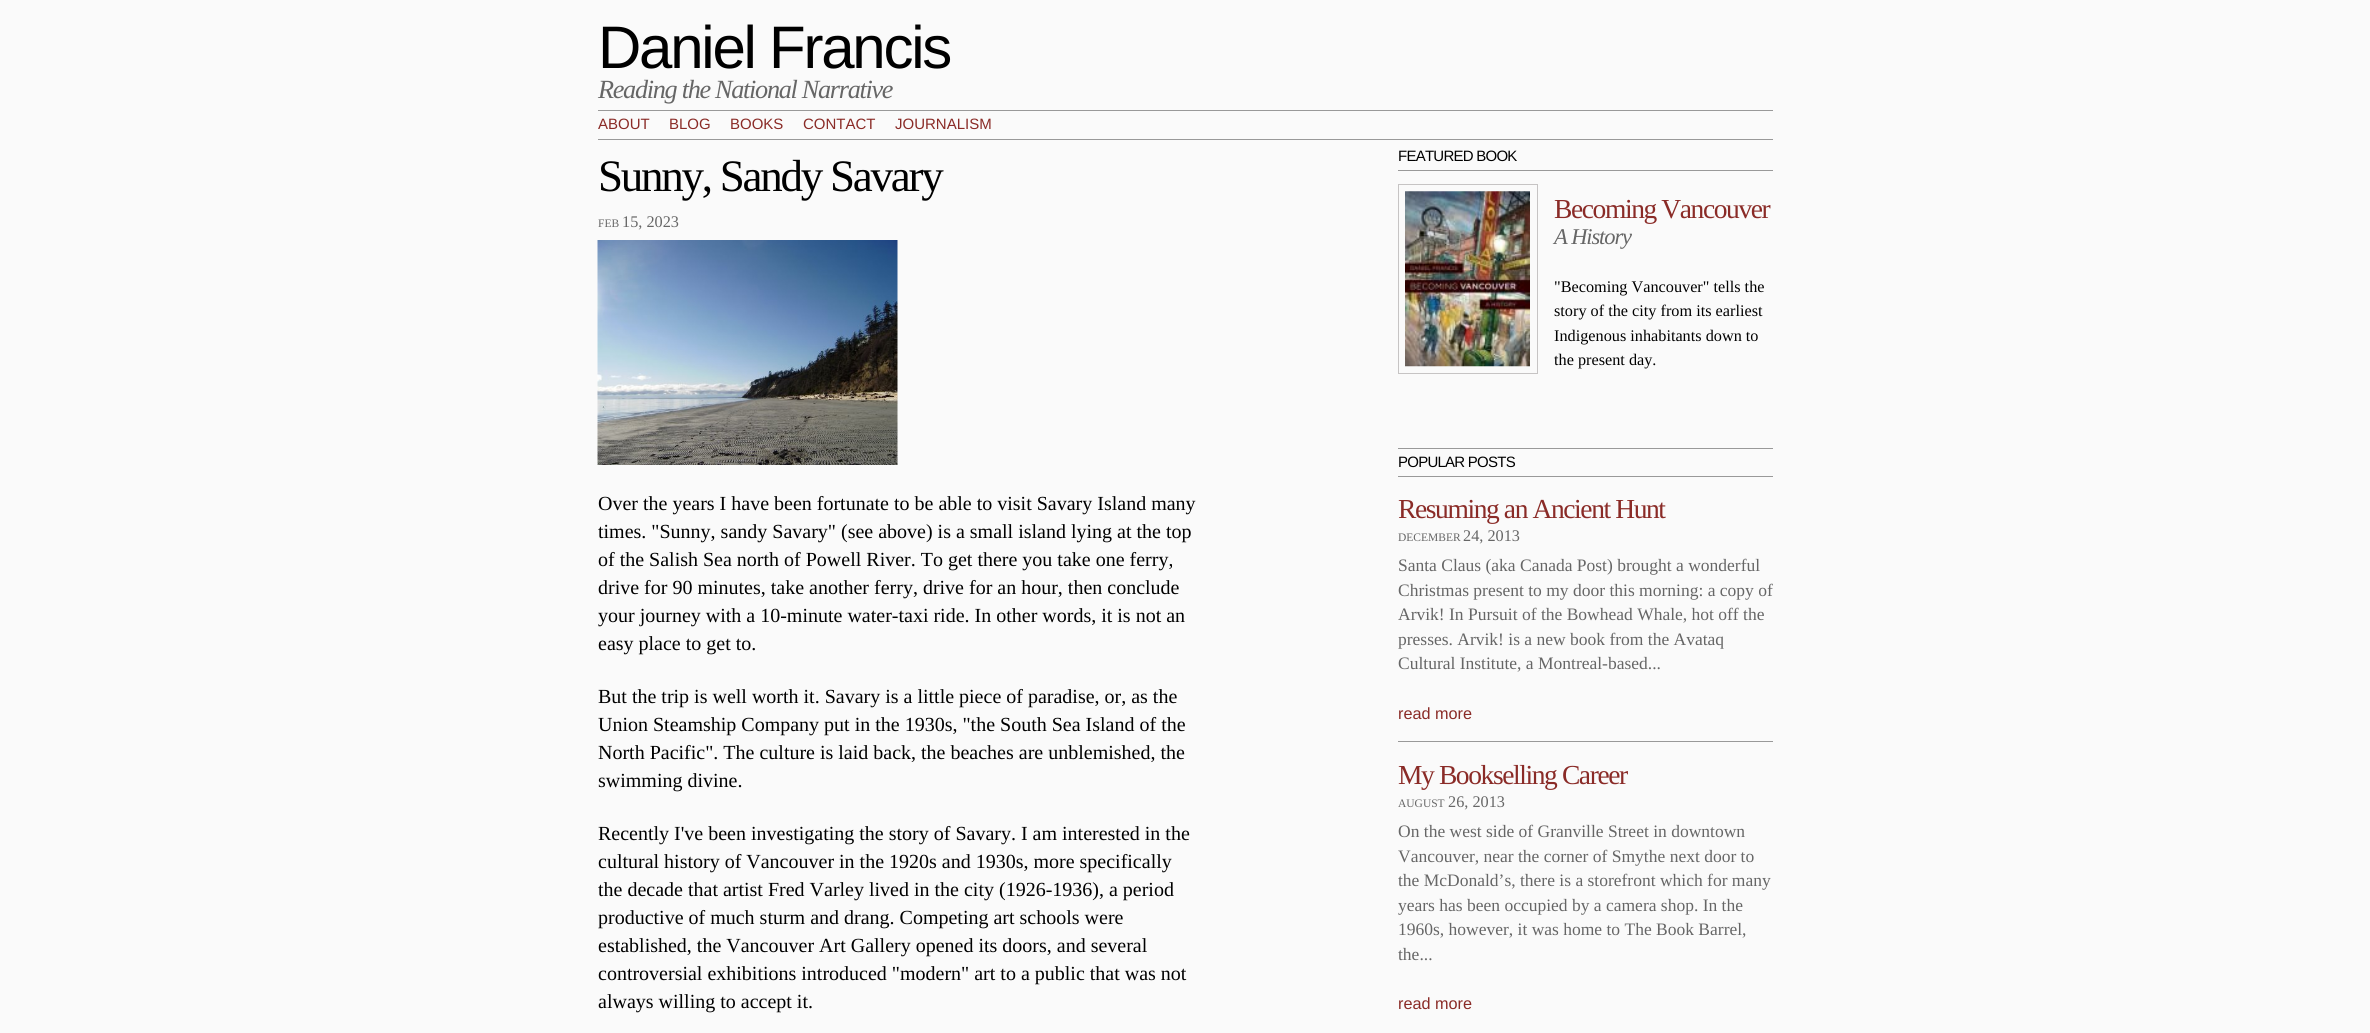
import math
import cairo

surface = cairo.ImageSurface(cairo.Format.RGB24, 2370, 1033)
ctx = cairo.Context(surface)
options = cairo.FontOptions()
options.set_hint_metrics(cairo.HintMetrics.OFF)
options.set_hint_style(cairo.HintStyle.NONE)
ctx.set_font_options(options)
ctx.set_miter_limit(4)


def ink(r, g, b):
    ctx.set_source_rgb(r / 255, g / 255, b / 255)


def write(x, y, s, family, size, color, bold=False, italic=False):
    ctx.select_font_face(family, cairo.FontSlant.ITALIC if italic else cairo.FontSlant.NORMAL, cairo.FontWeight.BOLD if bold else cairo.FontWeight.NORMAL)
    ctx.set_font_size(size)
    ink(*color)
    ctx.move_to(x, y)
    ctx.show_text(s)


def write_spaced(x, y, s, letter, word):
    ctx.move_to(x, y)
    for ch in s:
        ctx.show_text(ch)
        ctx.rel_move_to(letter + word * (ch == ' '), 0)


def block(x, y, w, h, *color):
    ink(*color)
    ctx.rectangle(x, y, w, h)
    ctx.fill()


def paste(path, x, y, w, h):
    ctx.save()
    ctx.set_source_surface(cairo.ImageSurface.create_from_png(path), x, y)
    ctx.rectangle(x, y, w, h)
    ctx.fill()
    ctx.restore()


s1 = dict(family="Liberation Sans", size=15, color=(138, 43, 39))
s2 = dict(family="Liberation Serif", size=11.5, color=(102, 102, 102))
s3 = dict(family="Liberation Serif", size=16.25, color=(102, 102, 102))
s4 = dict(family="Liberation Serif", size=20, color=(0, 0, 0))
s5 = dict(family="Liberation Serif", size=16.25, color=(0, 0, 0))
s6 = dict(family="Liberation Serif", size=17.5, color=(102, 102, 102))
s7 = dict(family="Liberation Sans", size=16.25, color=(138, 43, 39))

ink(250, 250, 250)
ctx.paint()
ctx.select_font_face("Liberation Sans")
ctx.set_font_size(60)
ink(0, 0, 0)
write_spaced(598, 68, "Daniel Francis", -2.25, 0)
ctx.select_font_face("Liberation Serif", cairo.FontSlant.ITALIC)
ctx.set_font_size(26.25)
ink(102, 102, 102)
write_spaced(598, 98, "Reading the National Narrative", -1.3, 0)
block(598, 110, 1175, 1, 153, 153, 153)
block(598, 139, 1175, 1, 153, 153, 153)
write(598, 129, "ABOUT", **s1)
write(669, 129, "BLOG", **s1)
write(730, 129, "BOOKS", **s1)
write(803, 129, "CONTACT", **s1)
write(895, 129, "JOURNALISM", **s1)
ctx.select_font_face("Liberation Serif")
ctx.set_font_size(45)
ink(0, 0, 0)
write_spaced(598, 191, "Sunny, Sandy Savary", -2.25, 0)
write(598, 227, "FEB", **s2)
write(622, 227, "15, 2023", **s3)
paste("pic1.png", 597, 240, 301, 225)
write(598, 510, "Over the years I have been fortunate to be able to visit Savary Island many", **s4)
write(598, 538, "times. \"Sunny, sandy Savary\" (see above) is a small island lying at the top", **s4)
write(598, 566, "of the Salish Sea north of Powell River. To get there you take one ferry,", **s4)
write(598, 594, "drive for 90 minutes, take another ferry, drive for an hour, then conclude", **s4)
write(598, 622, "your journey with a 10-minute water-taxi ride. In other words, it is not an", **s4)
write(598, 650, "easy place to get to.", **s4)
write(598, 703, "But the trip is well worth it. Savary is a little piece of paradise, or, as the", **s4)
write(598, 731, "Union Steamship Company put in the 1930s, \"the South Sea Island of the", **s4)
write(598, 759, "North Pacific\". The culture is laid back, the beaches are unblemished, the", **s4)
write(598, 787, "swimming divine.", **s4)
write(598, 840, "Recently I've been investigating the story of Savary. I am interested in the", **s4)
write(598, 868, "cultural history of Vancouver in the 1920s and 1930s, more specifically", **s4)
write(598, 896, "the decade that artist Fred Varley lived in the city (1926-1936), a period", **s4)
write(598, 924, "productive of much sturm and drang. Competing art schools were", **s4)
write(598, 952, "established, the Vancouver Art Gallery opened its doors, and several", **s4)
write(598, 980, "controversial exhibitions introduced \"modern\" art to a public that was not", **s4)
write(598, 1008, "always willing to accept it.", **s4)
block(1398, 170, 375, 1, 153, 153, 153)
ctx.select_font_face("Liberation Sans")
ctx.set_font_size(15)
ink(0, 0, 0)
write_spaced(1398, 161, "FEATURED BOOK", -0.75, 0)
block(1398, 448, 375, 1, 153, 153, 153)
ctx.rectangle(1398.5, 184.5, 139, 189)
ink(198, 196, 196)
ctx.set_line_width(1)
ctx.stroke()
paste("pic2.png", 1405, 191, 125, 176)
ctx.select_font_face("Liberation Serif")
ctx.set_font_size(27.5)
ink(138, 43, 39)
write_spaced(1554, 218, "Becoming Vancouver", -1.4, 0)
ctx.select_font_face("Liberation Serif", cairo.FontSlant.ITALIC)
ctx.set_font_size(22.5)
ink(102, 102, 102)
write_spaced(1554, 244, "A History", -1.1, 0)
write(1554, 292, "\"Becoming Vancouver\" tells the", **s5)
write(1554, 316, "story of the city from its earliest", **s5)
write(1554, 341, "Indigenous inhabitants down to", **s5)
write(1554, 365, "the present day.", **s5)
block(1398, 476, 375, 1, 153, 153, 153)
ctx.select_font_face("Liberation Sans")
ctx.set_font_size(15)
ink(0, 0, 0)
write_spaced(1398, 467, "POPULAR POSTS", -0.75, 0)
block(1398, 741, 375, 1, 153, 153, 153)
ctx.select_font_face("Liberation Serif")
ctx.set_font_size(27.5)
ink(138, 43, 39)
write_spaced(1398, 518, "Resuming an Ancient Hunt", -1.4, 0)
write(1398, 541, "DECEMBER", **s2)
write(1463, 541, "24, 2013", **s3)
write(1398, 571, "Santa Claus (aka Canada Post) brought a wonderful", **s6)
write(1398, 596, "Christmas present to my door this morning: a copy of", **s6)
write(1398, 620, "Arvik! In Pursuit of the Bowhead Whale, hot off the", **s6)
write(1398, 645, "presses. Arvik! is a new book from the Avataq", **s6)
write(1398, 669, "Cultural Institute, a Montreal-based...", **s6)
write(1398, 719, "read more", **s7)
ctx.select_font_face("Liberation Serif")
ctx.set_font_size(27.5)
write_spaced(1398, 784, "My Bookselling Career", -1.4, 0)
write(1398, 807, "AUGUST", **s2)
write(1448, 807, "26, 2013", **s3)
write(1398, 837, "On the west side of Granville Street in downtown", **s6)
write(1398, 862, "Vancouver, near the corner of Smythe next door to", **s6)
write(1398, 886, "the McDonald’s, there is a storefront which for many", **s6)
write(1398, 911, "years has been occupied by a camera shop. In the", **s6)
write(1398, 935, "1960s, however, it was home to The Book Barrel,", **s6)
write(1398, 960, "the...", **s6)
write(1398, 1009, "read more", **s7)
surface.write_to_png("screenshot.png")
